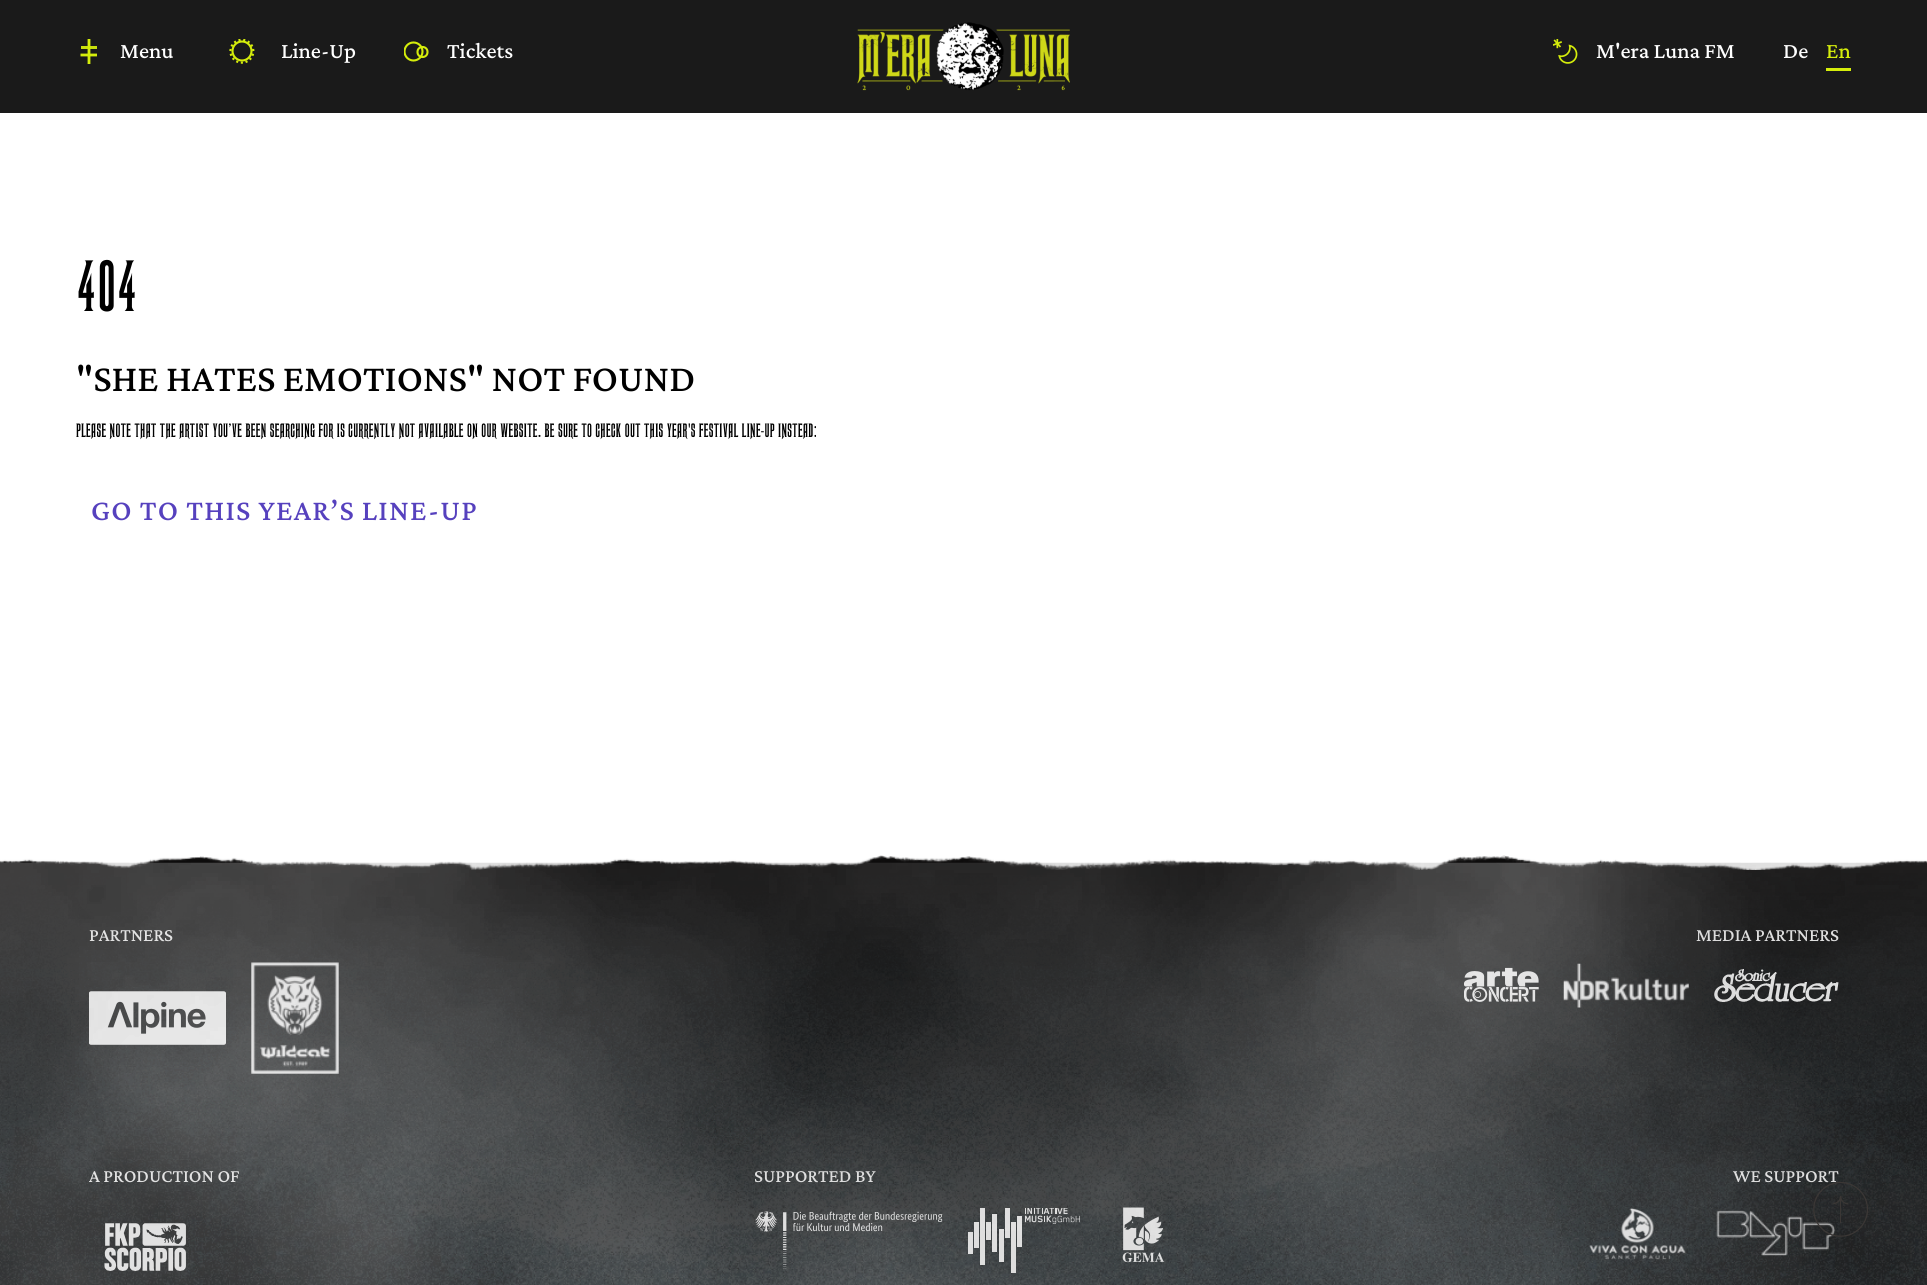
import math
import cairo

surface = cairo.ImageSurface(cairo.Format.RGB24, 1927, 1285)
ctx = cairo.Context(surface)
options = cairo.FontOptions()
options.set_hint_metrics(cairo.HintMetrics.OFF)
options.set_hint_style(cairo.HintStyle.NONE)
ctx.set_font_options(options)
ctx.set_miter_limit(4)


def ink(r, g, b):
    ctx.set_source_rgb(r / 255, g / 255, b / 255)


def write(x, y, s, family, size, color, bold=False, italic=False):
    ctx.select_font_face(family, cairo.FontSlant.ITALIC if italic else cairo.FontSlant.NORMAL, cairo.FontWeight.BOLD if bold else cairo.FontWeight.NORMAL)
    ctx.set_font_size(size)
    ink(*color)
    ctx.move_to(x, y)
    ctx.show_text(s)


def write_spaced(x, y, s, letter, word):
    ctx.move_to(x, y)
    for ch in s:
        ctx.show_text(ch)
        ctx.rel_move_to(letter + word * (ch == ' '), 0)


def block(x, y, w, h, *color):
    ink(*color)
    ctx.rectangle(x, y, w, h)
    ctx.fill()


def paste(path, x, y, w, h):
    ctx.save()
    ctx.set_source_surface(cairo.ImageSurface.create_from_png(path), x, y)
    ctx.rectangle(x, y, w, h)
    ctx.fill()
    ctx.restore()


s1 = dict(family="Crimson Pro Medium", size=22.5, color=(255, 255, 255))
s2 = dict(family="Crimson Pro Medium", size=22.5, color=(213, 237, 11))
s3 = dict(family="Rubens", size=75, color=(0, 0, 0))
s4 = dict(family="Crimson Pro Medium", size=38.75, color=(0, 0, 0))
s5 = dict(family="Rubens", size=20, color=(0, 0, 0))
s6 = dict(family="Crimson Pro Medium", size=18.75, color=(255, 255, 255))

ink(255, 255, 255)
ctx.paint()
block(0, 0, 1927, 113, 26, 26, 26)
ctx.new_path()
ctx.move_to(89, 39)
ctx.line_to(89, 64)
ink(213, 237, 11)
ctx.set_line_width(2.8)
ctx.stroke()
write(120, 58, "Menu", **s1)
ctx.set_source_rgba(0.835, 0.929, 0.043, 0.93)
ctx.rectangle(81, 46, 16, 3)
ctx.fill()
ctx.new_path()
ctx.move_to(97, 55)
ctx.line_to(80.5, 55)
ink(213, 237, 11)
ctx.stroke()
paste("pic1.png", 229, 39, 26, 25)
write(281, 58, "Line-Up", **s1)
ctx.new_path()
ctx.arc(422.5, 52, 5, 0, 2 * math.pi)
ink(213, 237, 11)
ctx.set_line_width(2.1)
ctx.stroke()
ctx.save()
ctx.rectangle(404, 39, 25, 25)
ctx.clip()
ctx.arc(413.5, 51.5, 9, 0, 2 * math.pi)
ctx.stroke()
ctx.restore()
write(447, 58, "Tickets", **s1)
paste("pic2.png", 857, 22, 213, 69)
paste("pic3.png", 1553, 39, 25, 25)
write(1596, 58, "M'era Luna FM", **s1)
write(1783, 58, "De", **s1)
block(1826, 68, 25, 3, 213, 237, 11)
write(1826, 58, "En", **s2)
write(76, 311, "404", **s3)
write(76, 391, "\"SHE HATES EMOTIONS\" NOT FOUND", **s4)
write(76, 437, "PLEASE NOTE THAT THE ARTIST YOU’VE BEEN SEARCHING FOR IS CURRENTLY NOT AVAILABLE ON OUR WEBSITE. BE SURE TO CHECK OUT THIS YEAR'S FESTIVAL LINE-UP INSTEAD:", **s5)
ctx.select_font_face("Crimson Pro Medium")
ctx.set_font_size(30)
ink(86, 65, 190)
write_spaced(91, 520, "GO TO THIS YEAR’S LINE-UP", 1.25, 0)
paste("pic4.png", 0, 870, 1927, 415)
paste("pic5.png", 0, 855, 1927, 15)
write(89, 941, "PARTNERS", **s6)
paste("pic9.png", 89, 991, 137, 54)
paste("pic10.png", 251, 962, 88, 112)
write(1696, 941, "MEDIA PARTNERS", **s6)
paste("pic11.png", 1464, 967, 75, 35)
paste("pic12.png", 1563, 963, 126, 45)
paste("pic13.png", 1714, 969, 125, 33)
write(89, 1182, "A PRODUCTION OF", **s6)
paste("pic14.png", 104, 1223, 82, 48)
write(754, 1182, "SUPPORTED BY", **s6)
paste("pic15.png", 755, 1211, 188, 58)
paste("pic16.png", 968, 1208, 112, 65)
paste("pic17.png", 1122, 1207, 43, 56)
write(1733, 1182, "WE SUPPORT", **s6)
paste("pic18.png", 1589, 1208, 97, 52)
paste("pic19.png", 1716, 1210, 120, 46)
paste("pic6.png", 0, 862, 1927, 423)
paste("pic7.png", 0, 862, 1927, 423)
paste("pic8.png", 0, 862, 1927, 423)
paste("pic20.png", 1813, 1182, 55, 55)
surface.write_to_png("screenshot.png")
